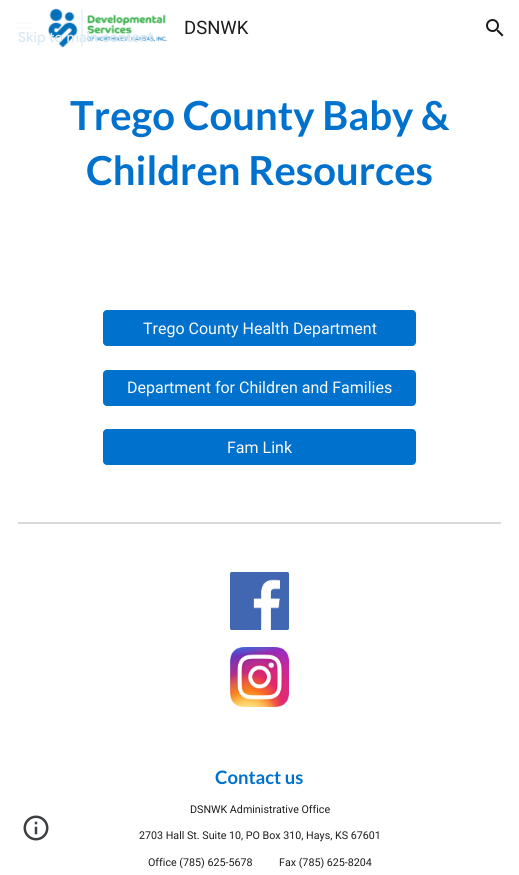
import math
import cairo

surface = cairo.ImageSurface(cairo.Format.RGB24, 519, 875)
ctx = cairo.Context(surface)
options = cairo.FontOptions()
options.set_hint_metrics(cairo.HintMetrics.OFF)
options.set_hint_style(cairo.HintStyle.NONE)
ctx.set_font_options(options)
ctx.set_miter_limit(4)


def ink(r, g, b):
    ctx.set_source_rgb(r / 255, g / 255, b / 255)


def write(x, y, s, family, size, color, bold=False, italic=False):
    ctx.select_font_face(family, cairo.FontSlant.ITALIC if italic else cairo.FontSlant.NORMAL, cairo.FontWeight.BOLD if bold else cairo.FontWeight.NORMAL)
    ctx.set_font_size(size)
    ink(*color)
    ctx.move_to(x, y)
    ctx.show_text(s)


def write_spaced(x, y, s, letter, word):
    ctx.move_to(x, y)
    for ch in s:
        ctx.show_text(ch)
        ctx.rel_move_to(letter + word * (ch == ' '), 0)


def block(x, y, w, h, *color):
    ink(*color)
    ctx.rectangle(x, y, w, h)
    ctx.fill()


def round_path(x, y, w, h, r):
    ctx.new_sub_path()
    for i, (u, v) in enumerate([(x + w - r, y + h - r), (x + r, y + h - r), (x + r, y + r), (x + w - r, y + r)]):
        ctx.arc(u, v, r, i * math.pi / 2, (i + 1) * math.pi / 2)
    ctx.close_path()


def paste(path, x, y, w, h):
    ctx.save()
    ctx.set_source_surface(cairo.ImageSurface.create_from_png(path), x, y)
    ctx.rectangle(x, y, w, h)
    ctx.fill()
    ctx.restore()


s1 = dict(family="Roboto", size=18.5, color=(28, 28, 28))
s2 = dict(family="Lato", size=40, color=(0, 114, 206), bold=True)
s3 = dict(family="Roboto", size=16, color=(249, 249, 249))
s4 = dict(family="Lato", size=18.5, color=(0, 114, 206), bold=True)
s5 = dict(family="Roboto", size=10.7, color=(28, 28, 28))

ink(255, 255, 255)
ctx.paint()
block(15, 22, 18, 2, 250, 250, 250)
block(15, 27, 18, 2, 250, 250, 250)
block(15, 32, 18, 2, 250, 250, 250)
paste("pic1.png", 47, 8, 121, 40)
write(184, 34, "DSNWK", **s1)
paste("pic2.png", 486, 19, 18, 18)
write(70, 130, "Trego County Baby &", **s2)
write(86, 185, "Children Resources", **s2)
round_path(103.5, 310.5, 312, 35, 3.5)
ctx.fill_preserve()
ctx.set_line_width(1)
ctx.stroke()
write(143, 334, "Trego County Health Department", **s3)
ink(0, 114, 206)
round_path(103.5, 370.5, 312, 35, 3.5)
ctx.fill_preserve()
ctx.stroke()
write(127, 393, "Department for Children and Families", **s3)
ink(0, 114, 206)
round_path(103.5, 429.5, 312, 35, 3.5)
ctx.fill_preserve()
ctx.stroke()
write(227, 453, "Fam Link", **s3)
paste("pic3.png", 23, 815, 26, 26)
block(18, 522, 483, 2, 217, 217, 217)
paste("pic4.png", 230, 572, 59, 58)
paste("pic5.png", 230, 647, 59, 60)
write(215, 784, "Contact us", **s4)
write(190, 813, "DSNWK Administrative Office", **s5)
write(139, 839, "2703 Hall St. Suite 10, PO Box 310, Hays, KS 67601", **s5)
write(148, 866, "Office (785) 625-5678          Fax (785) 625-8204", **s5)
ctx.select_font_face("Google Sans Medium")
ctx.set_font_size(14)
ink(216, 233, 243)
write_spaced(18, 42, "Skip to main content", 0.1, 0)
surface.write_to_png("screenshot.png")
